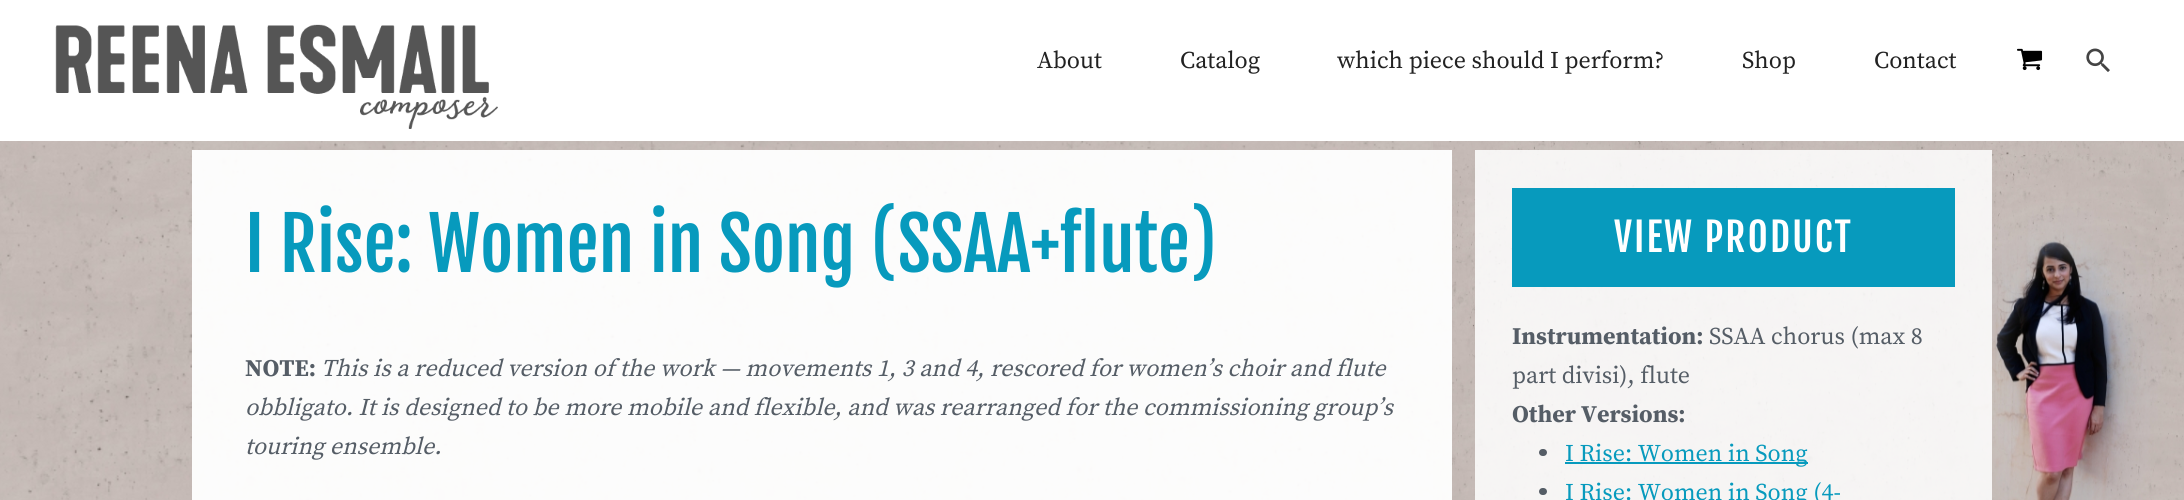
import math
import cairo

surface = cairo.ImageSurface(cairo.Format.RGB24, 2184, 500)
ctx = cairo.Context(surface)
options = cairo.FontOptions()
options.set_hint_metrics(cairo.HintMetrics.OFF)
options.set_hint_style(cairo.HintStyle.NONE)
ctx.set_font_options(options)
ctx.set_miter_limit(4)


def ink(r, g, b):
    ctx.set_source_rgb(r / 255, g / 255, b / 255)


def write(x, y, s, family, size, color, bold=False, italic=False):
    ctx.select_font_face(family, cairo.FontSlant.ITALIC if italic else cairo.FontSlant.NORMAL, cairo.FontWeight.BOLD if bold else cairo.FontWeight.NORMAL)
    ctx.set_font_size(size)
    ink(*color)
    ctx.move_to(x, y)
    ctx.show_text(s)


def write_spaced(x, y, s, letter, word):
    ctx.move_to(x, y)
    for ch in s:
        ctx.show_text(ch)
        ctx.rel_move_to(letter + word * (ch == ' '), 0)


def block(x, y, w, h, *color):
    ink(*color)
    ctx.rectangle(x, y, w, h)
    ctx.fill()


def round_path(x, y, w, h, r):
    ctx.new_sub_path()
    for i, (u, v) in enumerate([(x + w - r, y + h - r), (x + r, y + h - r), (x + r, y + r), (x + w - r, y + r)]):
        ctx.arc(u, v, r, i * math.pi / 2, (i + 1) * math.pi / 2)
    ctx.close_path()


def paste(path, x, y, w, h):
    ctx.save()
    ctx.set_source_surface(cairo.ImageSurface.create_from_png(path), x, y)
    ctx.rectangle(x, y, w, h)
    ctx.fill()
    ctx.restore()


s1 = dict(family="Source Serif Pro", size=24, color=(34, 34, 34))
s2 = dict(family="Fjalla One", size=72, color=(7, 154, 189))
s3 = dict(family="Source Serif Pro", size=24, color=(85, 93, 102), bold=True)
s4 = dict(family="Source Serif Pro", size=24, color=(85, 93, 102), italic=True)
s5 = dict(family="Source Serif Pro", size=24, color=(85, 93, 102))
s6 = dict(family="Source Serif Pro", size=24, color=(7, 154, 189))

ink(255, 255, 255)
ctx.paint()
paste("pic1.png", 0, 141, 2184, 359)
paste("pic2.png", 1433, 141, 751, 359)
paste("pic3.png", 55, 24, 443, 105)
write(1037, 68, "About", **s1)
write(1180, 68, "Catalog", **s1)
write(1337, 68, "which piece should I perform?", **s1)
write(1742, 68, "Shop", **s1)
write(1874, 68, "Contact", **s1)
paste("pic4.png", 2017, 48, 26, 23)
paste("pic5.png", 2086, 48, 24, 24)
ctx.set_source_rgba(1, 1, 1, 0.95)
ctx.rectangle(192, 150, 1260, 350)
ctx.fill()
write(245, 272, "I Rise: Women in Song (SSAA+flute)", **s2)
write(245, 376, "NOTE:", **s3)
write(321, 376, "This is a reduced version of the work — movements 1, 3 and 4, rescored for women’s choir and flute", **s4)
write(245, 415, "obbligato. It is designed to be more mobile and flexible, and was rearranged for the commissioning group’s", **s4)
write(245, 454, "touring ensemble.", **s4)
ctx.set_source_rgba(1, 1, 1, 0.85)
ctx.rectangle(1475, 150, 517, 350)
ctx.fill()
block(1512, 188, 443, 99, 7, 154, 189)
ctx.select_font_face("Fjalla One")
ctx.set_font_size(39)
ink(255, 255, 255)
write_spaced(1614, 252, "VIEW PRODUCT", 2, 0)
write(1512, 344, "Instrumentation:", **s3)
write(1709, 344, "SSAA chorus (max 8", **s5)
write(1512, 383, "part divisi), flute", **s5)
write(1512, 422, "Other Versions:", **s3)
round_path(1539, 449, 8, 7, 3.5)
ctx.fill()
block(1565, 462, 243, 2, 7, 154, 189)
write(1565, 461, "I Rise: Women in Song", **s6)
ink(85, 93, 102)
round_path(1539, 488, 8, 7, 3.5)
ctx.fill()
write(1565, 500, "I Rise: Women in Song (4-", **s6)
surface.write_to_png("screenshot.png")
